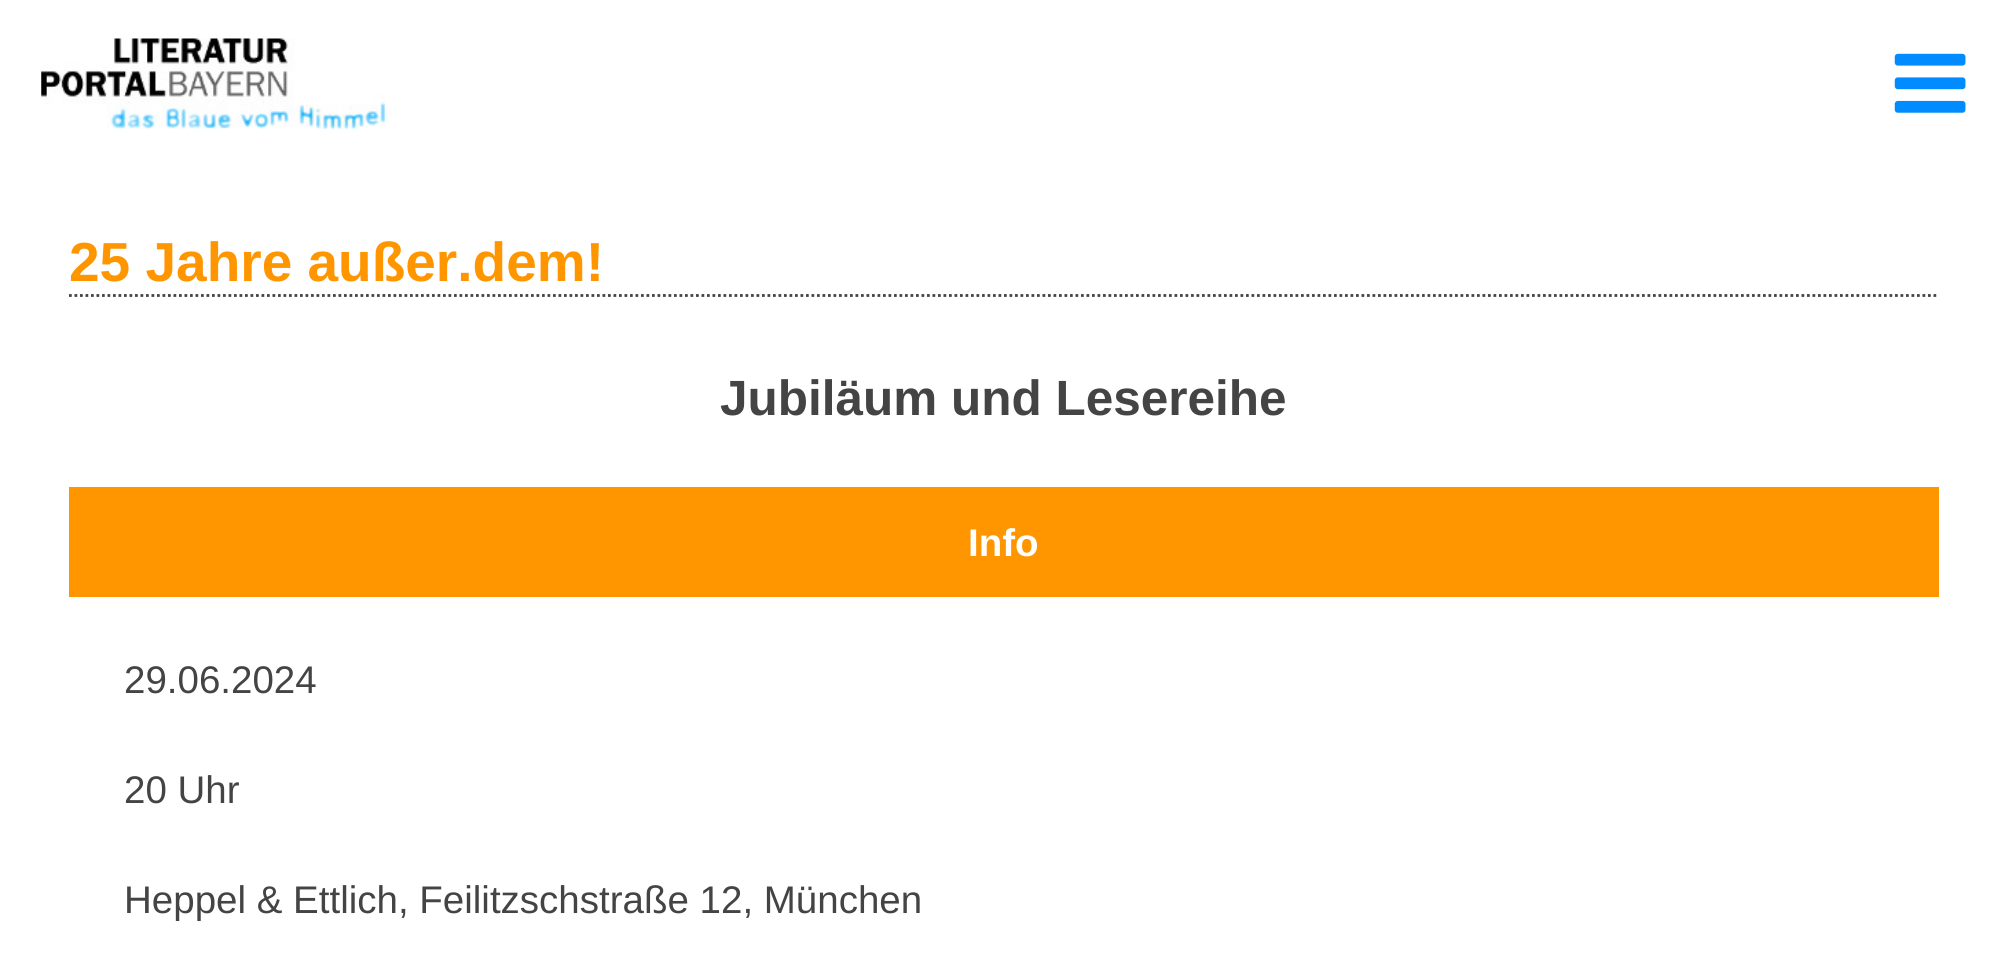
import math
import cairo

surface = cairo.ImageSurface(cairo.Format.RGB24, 2006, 962)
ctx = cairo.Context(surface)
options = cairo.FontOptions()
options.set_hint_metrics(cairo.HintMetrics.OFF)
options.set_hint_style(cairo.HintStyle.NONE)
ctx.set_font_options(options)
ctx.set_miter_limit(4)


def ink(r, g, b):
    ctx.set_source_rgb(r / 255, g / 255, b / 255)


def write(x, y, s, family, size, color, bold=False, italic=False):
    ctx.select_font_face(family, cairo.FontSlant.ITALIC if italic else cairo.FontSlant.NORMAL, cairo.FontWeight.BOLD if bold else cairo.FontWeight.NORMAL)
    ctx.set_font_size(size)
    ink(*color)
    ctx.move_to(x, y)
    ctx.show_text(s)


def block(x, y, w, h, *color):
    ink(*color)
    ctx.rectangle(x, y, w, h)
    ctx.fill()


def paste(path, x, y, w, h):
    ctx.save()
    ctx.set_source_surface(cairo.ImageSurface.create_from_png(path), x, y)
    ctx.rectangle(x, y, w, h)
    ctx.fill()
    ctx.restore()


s1 = dict(family="Liberation Sans", size=55, color=(255, 150, 0), bold=True)
s2 = dict(family="Liberation Sans", size=49.5, color=(68, 68, 68), bold=True)
s3 = dict(family="Liberation Sans", size=38.5, color=(255, 255, 255), bold=True)
s4 = dict(family="Liberation Sans", size=38.5, color=(68, 68, 68))

ink(255, 255, 255)
ctx.paint()
paste("pic1.png", 41, 38, 344, 92)
paste("pic2.png", 1894, 53, 72, 60)
ctx.new_path()
ctx.move_to(69, 295.5)
ctx.line_to(1939, 295.5)
ink(68, 68, 68)
ctx.set_line_width(2.8)
ctx.set_dash([2.75, 2.75])
ctx.stroke()
write(69, 281, "25 Jahre außer.dem!", **s1)
write(720, 415, "Jubiläum und Lesereihe", **s2)
block(69, 487, 1870, 110, 255, 150, 0)
write(968, 556, "Info", **s3)
write(124, 693, "29.06.2024", **s4)
write(124, 803, "20 Uhr", **s4)
write(124, 913, "Heppel & Ettlich, Feilitzschstraße 12, München", **s4)
surface.write_to_png("screenshot.png")
